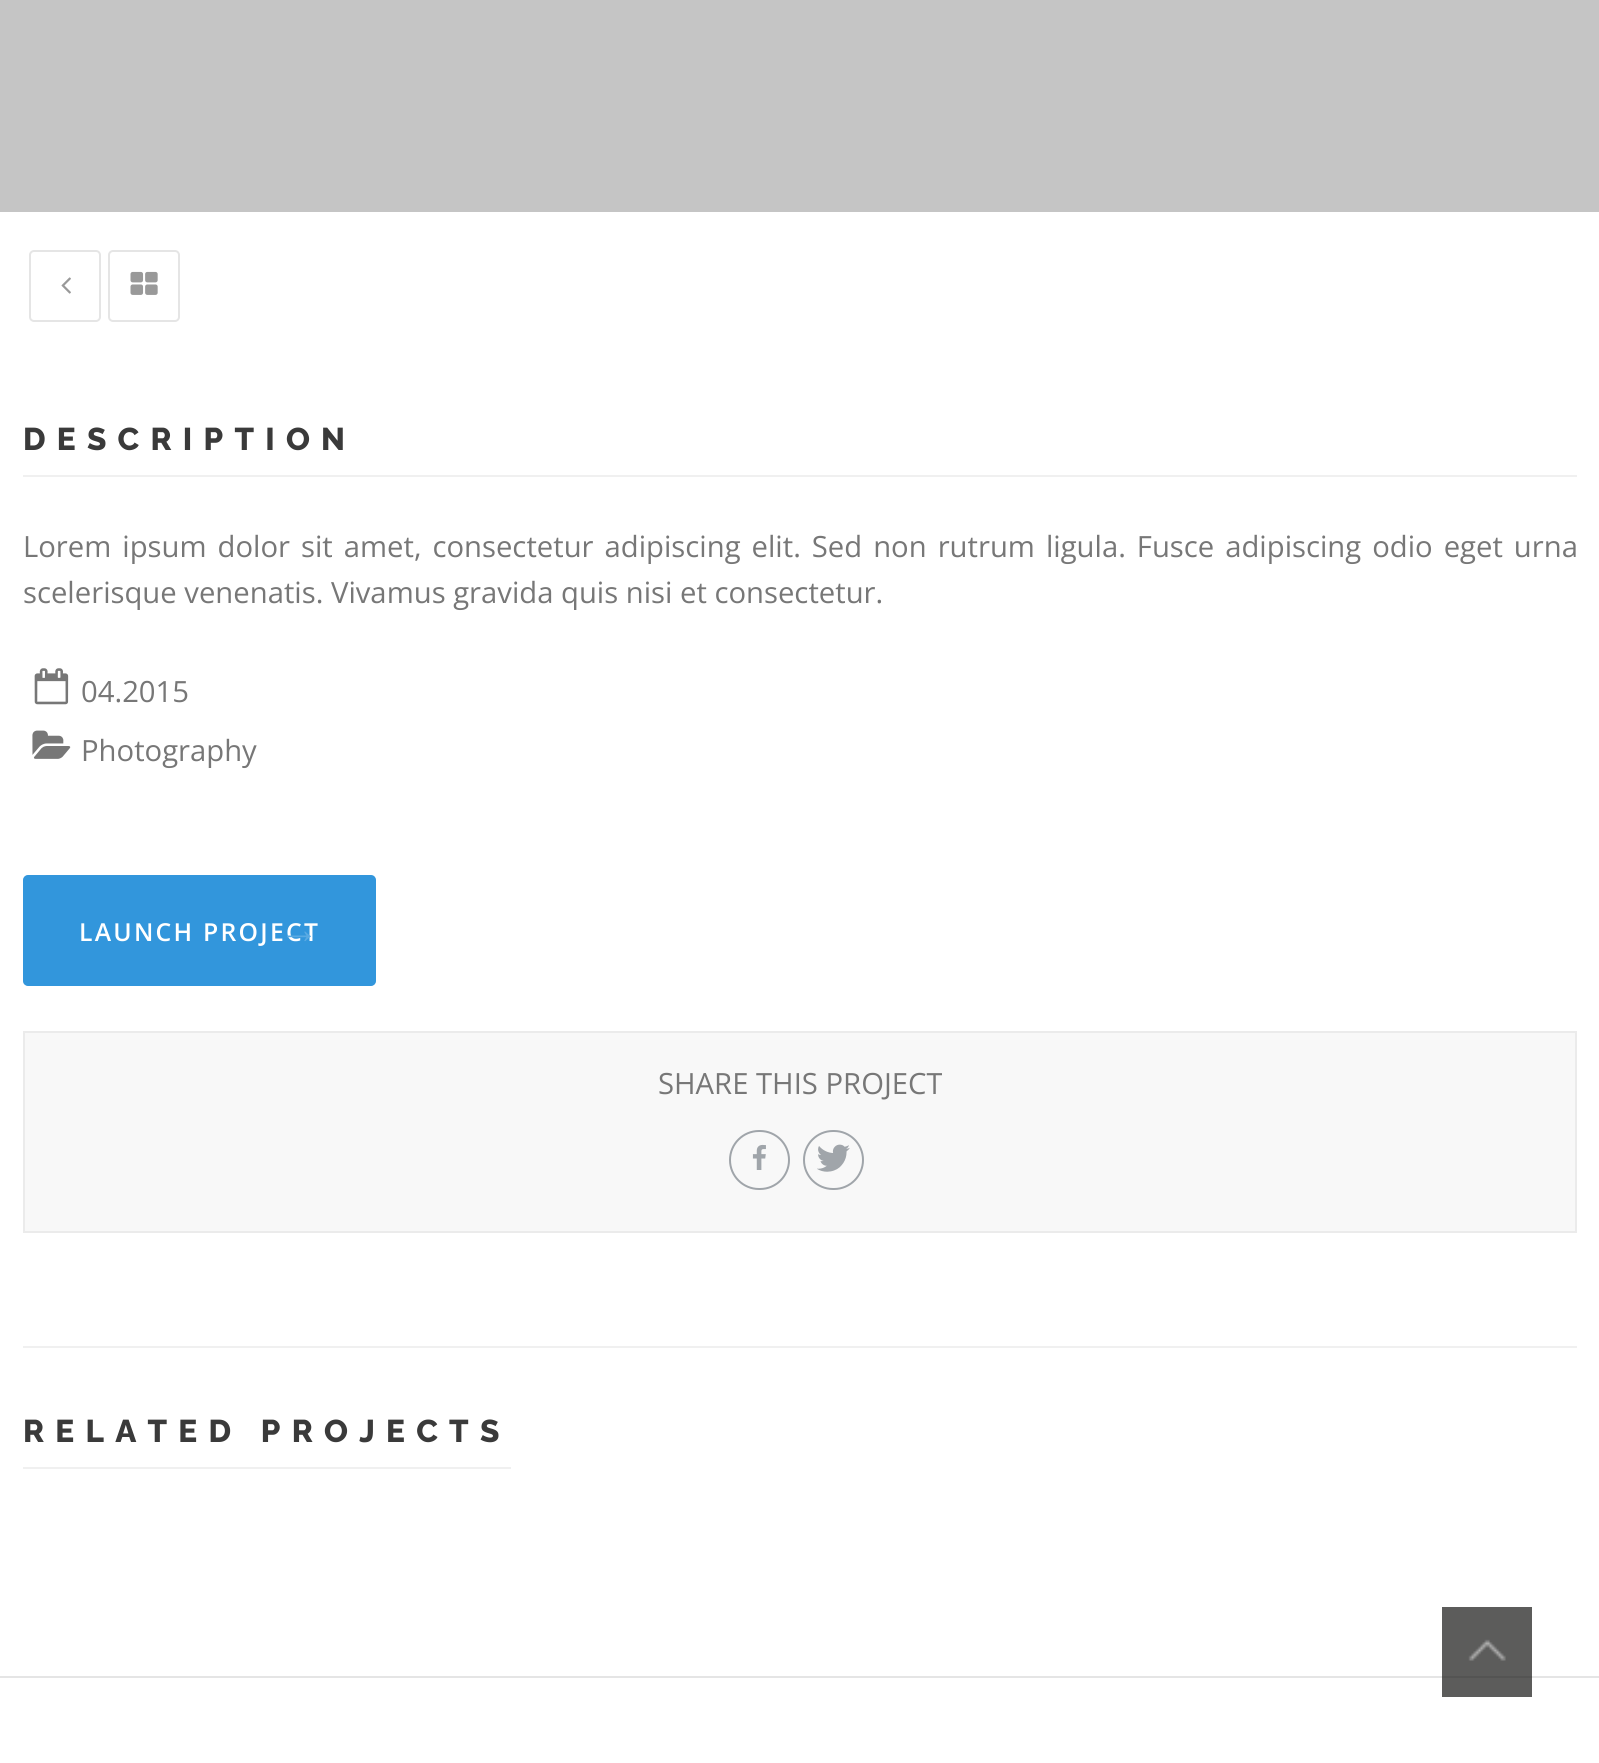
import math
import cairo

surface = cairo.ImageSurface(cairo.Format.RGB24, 1599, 1763)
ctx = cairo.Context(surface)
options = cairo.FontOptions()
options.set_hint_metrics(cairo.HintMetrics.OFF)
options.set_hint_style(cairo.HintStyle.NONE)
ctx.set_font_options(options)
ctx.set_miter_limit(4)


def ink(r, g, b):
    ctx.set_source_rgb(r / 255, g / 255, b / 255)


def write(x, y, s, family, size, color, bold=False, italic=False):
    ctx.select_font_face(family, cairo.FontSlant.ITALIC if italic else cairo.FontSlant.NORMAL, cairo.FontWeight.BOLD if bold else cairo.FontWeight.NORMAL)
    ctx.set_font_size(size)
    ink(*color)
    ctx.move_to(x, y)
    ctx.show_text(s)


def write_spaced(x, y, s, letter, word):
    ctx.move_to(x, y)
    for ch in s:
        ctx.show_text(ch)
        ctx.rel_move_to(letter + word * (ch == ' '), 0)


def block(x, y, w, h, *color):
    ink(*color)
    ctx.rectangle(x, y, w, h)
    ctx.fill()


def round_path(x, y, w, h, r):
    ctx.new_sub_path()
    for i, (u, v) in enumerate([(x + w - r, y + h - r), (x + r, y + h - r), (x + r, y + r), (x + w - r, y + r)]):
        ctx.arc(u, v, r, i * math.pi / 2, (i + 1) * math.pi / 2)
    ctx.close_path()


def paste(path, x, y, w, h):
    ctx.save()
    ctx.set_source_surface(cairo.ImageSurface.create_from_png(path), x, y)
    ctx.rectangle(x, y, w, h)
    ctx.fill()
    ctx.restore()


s1 = dict(family="Open Sans", size=29.25, color=(119, 119, 119))

ink(255, 255, 255)
ctx.paint()
block(1442, 1607, 90, 90, 92, 92, 91)
block(0, 0, 1599, 212, 197, 197, 197)
block(0, 1676, 1599, 2, 229, 229, 229)
block(1442, 1676, 90, 2, 84, 84, 83)
block(23, 1346, 1554, 2, 240, 240, 240)
round_path(30, 251, 70, 70, 4)
ink(229, 229, 229)
ctx.stroke()
paste("pic1.png", 61, 277, 10, 17)
round_path(109, 251, 70, 70, 4)
ctx.stroke()
paste("pic2.png", 130, 271, 28, 24)
ctx.select_font_face("Raleway ExtraBold")
ctx.set_font_size(31.5)
ink(58, 58, 58)
write_spaced(23, 450, "DESCRIPTION", 11.25, 0)
block(23, 475, 1554, 2, 240, 240, 240)
ctx.select_font_face("Open Sans")
ctx.set_font_size(29.25)
ink(119, 119, 119)
write_spaced(23, 557, "Lorem ipsum dolor sit amet, consectetur adipiscing elit. Sed non rutrum ligula. Fusce adipiscing odio eget urna", 0, 3.4)
write(23, 603, "scelerisque venenatis. Vivamus gravida quis nisi et consectetur.", **s1)
paste("pic3.png", 34, 668, 35, 37)
write(81, 702, "04.2015", **s1)
paste("pic4.png", 32, 730, 39, 29)
write(81, 761, "Photography", **s1)
ink(50, 150, 220)
round_path(24, 876, 351, 109, 4)
ctx.fill_preserve()
ctx.stroke()
ctx.select_font_face("Open Sans SemiBold")
ctx.set_font_size(24.75)
ink(255, 255, 255)
write_spaced(79, 941, "LAUNCH PROJECT", 2.25, 0)
ctx.select_font_face("Liberation Serif", cairo.FontSlant.NORMAL, cairo.FontWeight.BOLD)
ctx.set_font_size(40)
ink(89, 170, 227)
write_spaced(279, 943, "→", 2.25, 0)
ink(248, 248, 248)
ctx.rectangle(24, 1032, 1552, 200)
ctx.fill_preserve()
ink(235, 235, 235)
ctx.stroke()
write(658, 1094, "SHARE THIS PROJECT", **s1)
round_path(730, 1131, 59, 58, 29)
ink(160, 165, 170)
ctx.stroke()
paste("pic5.png", 752, 1144, 14, 26)
round_path(804, 1131, 59, 58, 29)
ctx.stroke()
paste("pic6.png", 817, 1144, 33, 28)
ctx.select_font_face("Raleway ExtraBold")
ctx.set_font_size(31.5)
ink(58, 58, 58)
write_spaced(23, 1442, "RELATED PROJECTS", 11.25, 0)
block(23, 1467, 488, 2, 240, 240, 240)
paste("pic7.png", 1468, 1639, 38, 22)
surface.write_to_png("screenshot.png")
